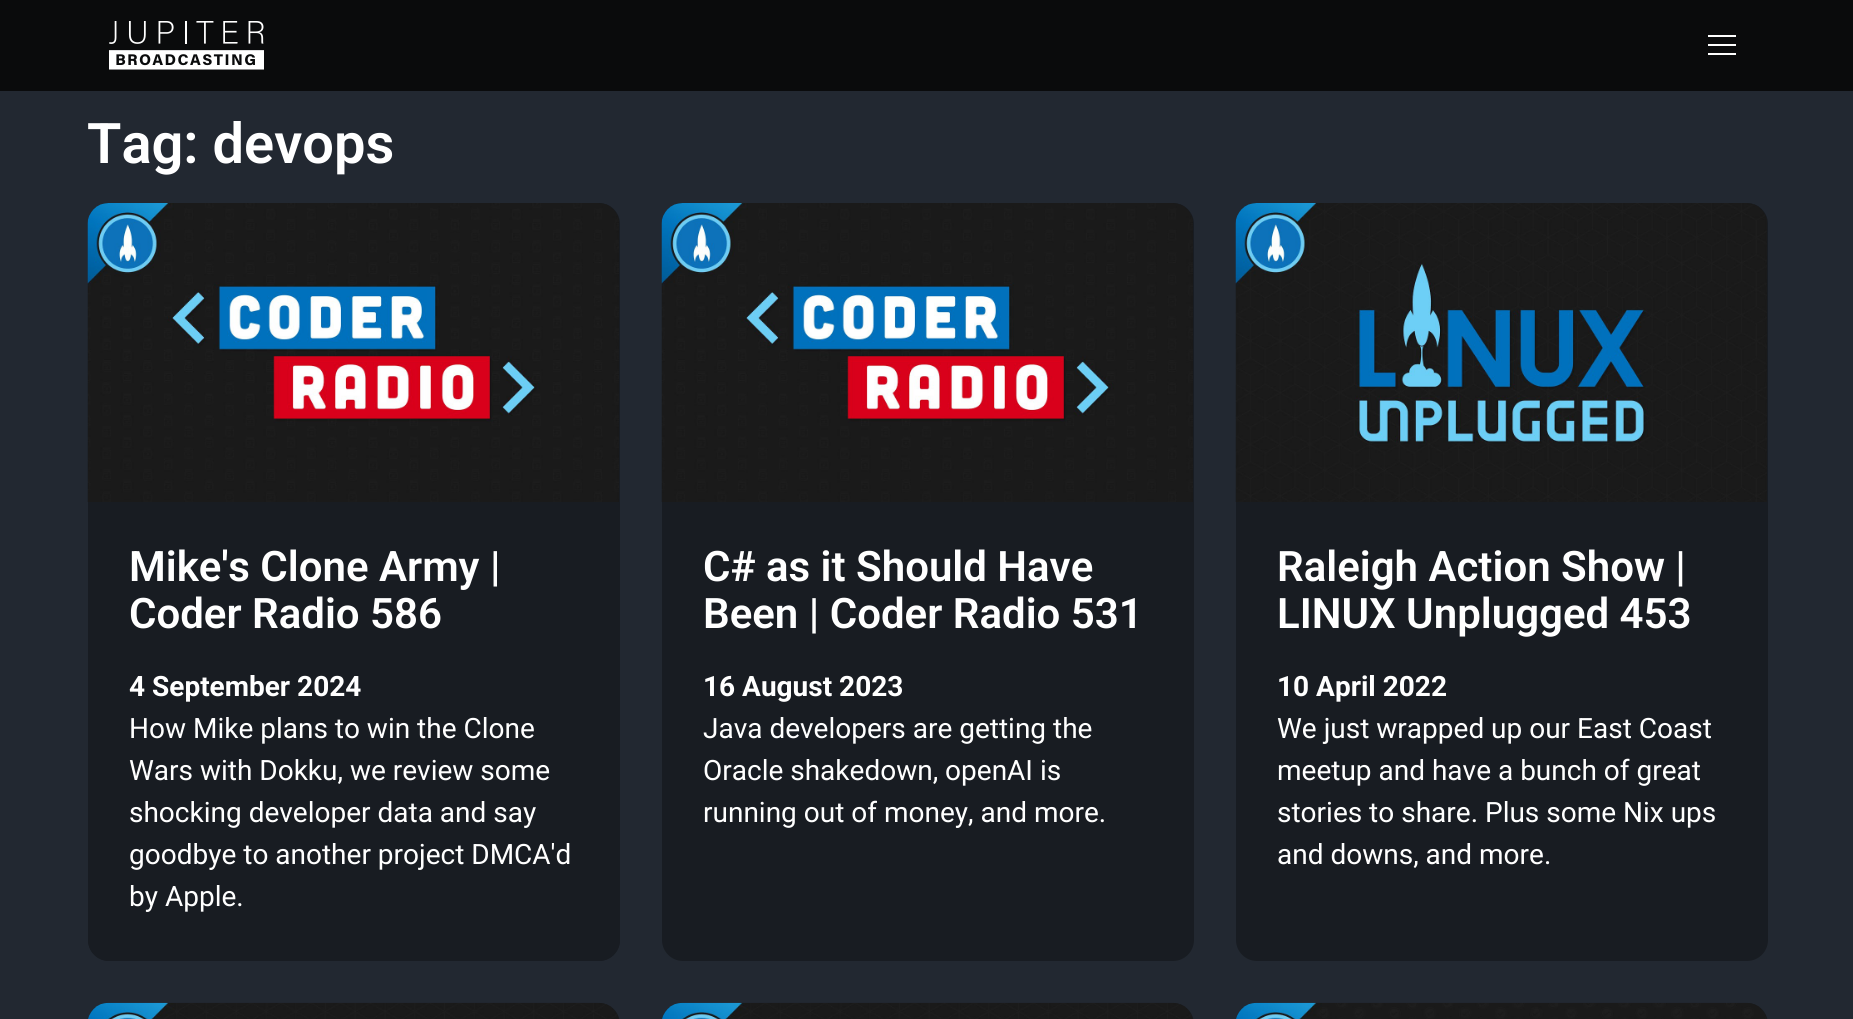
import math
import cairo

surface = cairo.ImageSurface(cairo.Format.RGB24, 1853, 1019)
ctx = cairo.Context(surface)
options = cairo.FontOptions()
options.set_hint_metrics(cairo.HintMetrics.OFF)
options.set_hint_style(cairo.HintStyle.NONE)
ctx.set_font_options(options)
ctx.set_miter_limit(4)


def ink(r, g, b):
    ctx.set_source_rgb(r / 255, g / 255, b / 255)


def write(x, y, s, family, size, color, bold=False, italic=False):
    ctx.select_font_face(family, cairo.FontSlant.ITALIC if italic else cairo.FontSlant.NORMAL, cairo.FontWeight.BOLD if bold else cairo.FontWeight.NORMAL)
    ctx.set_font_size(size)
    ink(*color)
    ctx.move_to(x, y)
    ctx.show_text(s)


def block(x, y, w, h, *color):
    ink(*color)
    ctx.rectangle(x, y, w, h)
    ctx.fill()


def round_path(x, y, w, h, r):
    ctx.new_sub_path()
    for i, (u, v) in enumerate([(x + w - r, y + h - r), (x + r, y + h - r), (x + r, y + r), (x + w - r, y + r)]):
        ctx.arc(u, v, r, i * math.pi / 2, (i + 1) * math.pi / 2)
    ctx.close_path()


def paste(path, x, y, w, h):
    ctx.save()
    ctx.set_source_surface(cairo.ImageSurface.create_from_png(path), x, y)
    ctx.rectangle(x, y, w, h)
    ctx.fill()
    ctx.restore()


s1 = dict(family="Roboto SemiBold", size=56, color=(255, 255, 255))
s2 = dict(family="Roboto SemiBold", size=42, color=(255, 255, 255))
s3 = dict(family="Roboto", size=28, color=(255, 255, 255), bold=True)
s4 = dict(family="Roboto", size=28, color=(255, 255, 255))

ink(34, 40, 49)
ctx.paint()
block(0, 0, 1853, 91, 10, 11, 12)
paste("pic1.png", 109, 21, 155, 49)
block(1708, 35, 28, 2, 255, 255, 255)
block(1708, 44, 28, 2, 255, 255, 255)
block(1708, 53, 28, 2, 255, 255, 255)
write(87, 163, "Tag: devops", **s1)
ink(24, 28, 34)
round_path(88, 203, 532, 758, 21)
ctx.fill()
paste("pic2.png", 87, 203, 532, 299)
ctx.new_path()
ctx.move_to(88, 502)
ctx.line_to(620, 502)
ctx.line_to(620, 940)
ctx.curve_to(620, 951.5, 610.5, 961, 599, 961)
ctx.line_to(109, 961)
ctx.curve_to(97.5, 961, 88, 951.5, 88, 940)
ctx.close_path()
ctx.fill()
write(129, 581, "Mike's Clone Army |", **s2)
write(129, 628, "Coder Radio 586", **s2)
write(129, 696, "4 September 2024", **s3)
write(129, 738, "How Mike plans to win the Clone", **s4)
write(129, 780, "Wars with Dokku, we review some", **s4)
write(129, 822, "shocking developer data and say", **s4)
write(129, 864, "goodbye to another project DMCA'd", **s4)
write(129, 906, "by Apple.", **s4)
ink(24, 28, 34)
round_path(662, 203, 532, 758, 21)
ctx.fill()
paste("pic2.png", 661, 203, 532, 299)
write(703, 581, "C# as it Should Have", **s2)
write(703, 628, "Been | Coder Radio 531", **s2)
write(703, 696, "16 August 2023", **s3)
write(703, 738, "Java developers are getting the", **s4)
write(703, 780, "Oracle shakedown, openAI is", **s4)
write(703, 822, "running out of money, and more.", **s4)
ink(24, 28, 34)
round_path(1236, 203, 532, 758, 21)
ctx.fill()
paste("pic3.png", 1235, 203, 532, 299)
write(1277, 581, "Raleigh Action Show |", **s2)
write(1277, 628, "LINUX Unplugged 453", **s2)
write(1277, 696, "10 April 2022", **s3)
write(1277, 738, "We just wrapped up our East Coast", **s4)
write(1277, 780, "meetup and have a bunch of great", **s4)
write(1277, 822, "stories to share. Plus some Nix ups", **s4)
write(1277, 864, "and downs, and more.", **s4)
ink(24, 28, 34)
round_path(88, 1003, 532, 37, 21)
ctx.fill()
paste("pic4.png", 88, 1002, 531, 17)
round_path(662, 1003, 532, 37, 21)
ctx.fill()
paste("pic4.png", 662, 1002, 531, 17)
round_path(1236, 1003, 532, 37, 21)
ctx.fill()
paste("pic5.png", 1236, 1002, 531, 17)
surface.write_to_png("screenshot.png")
